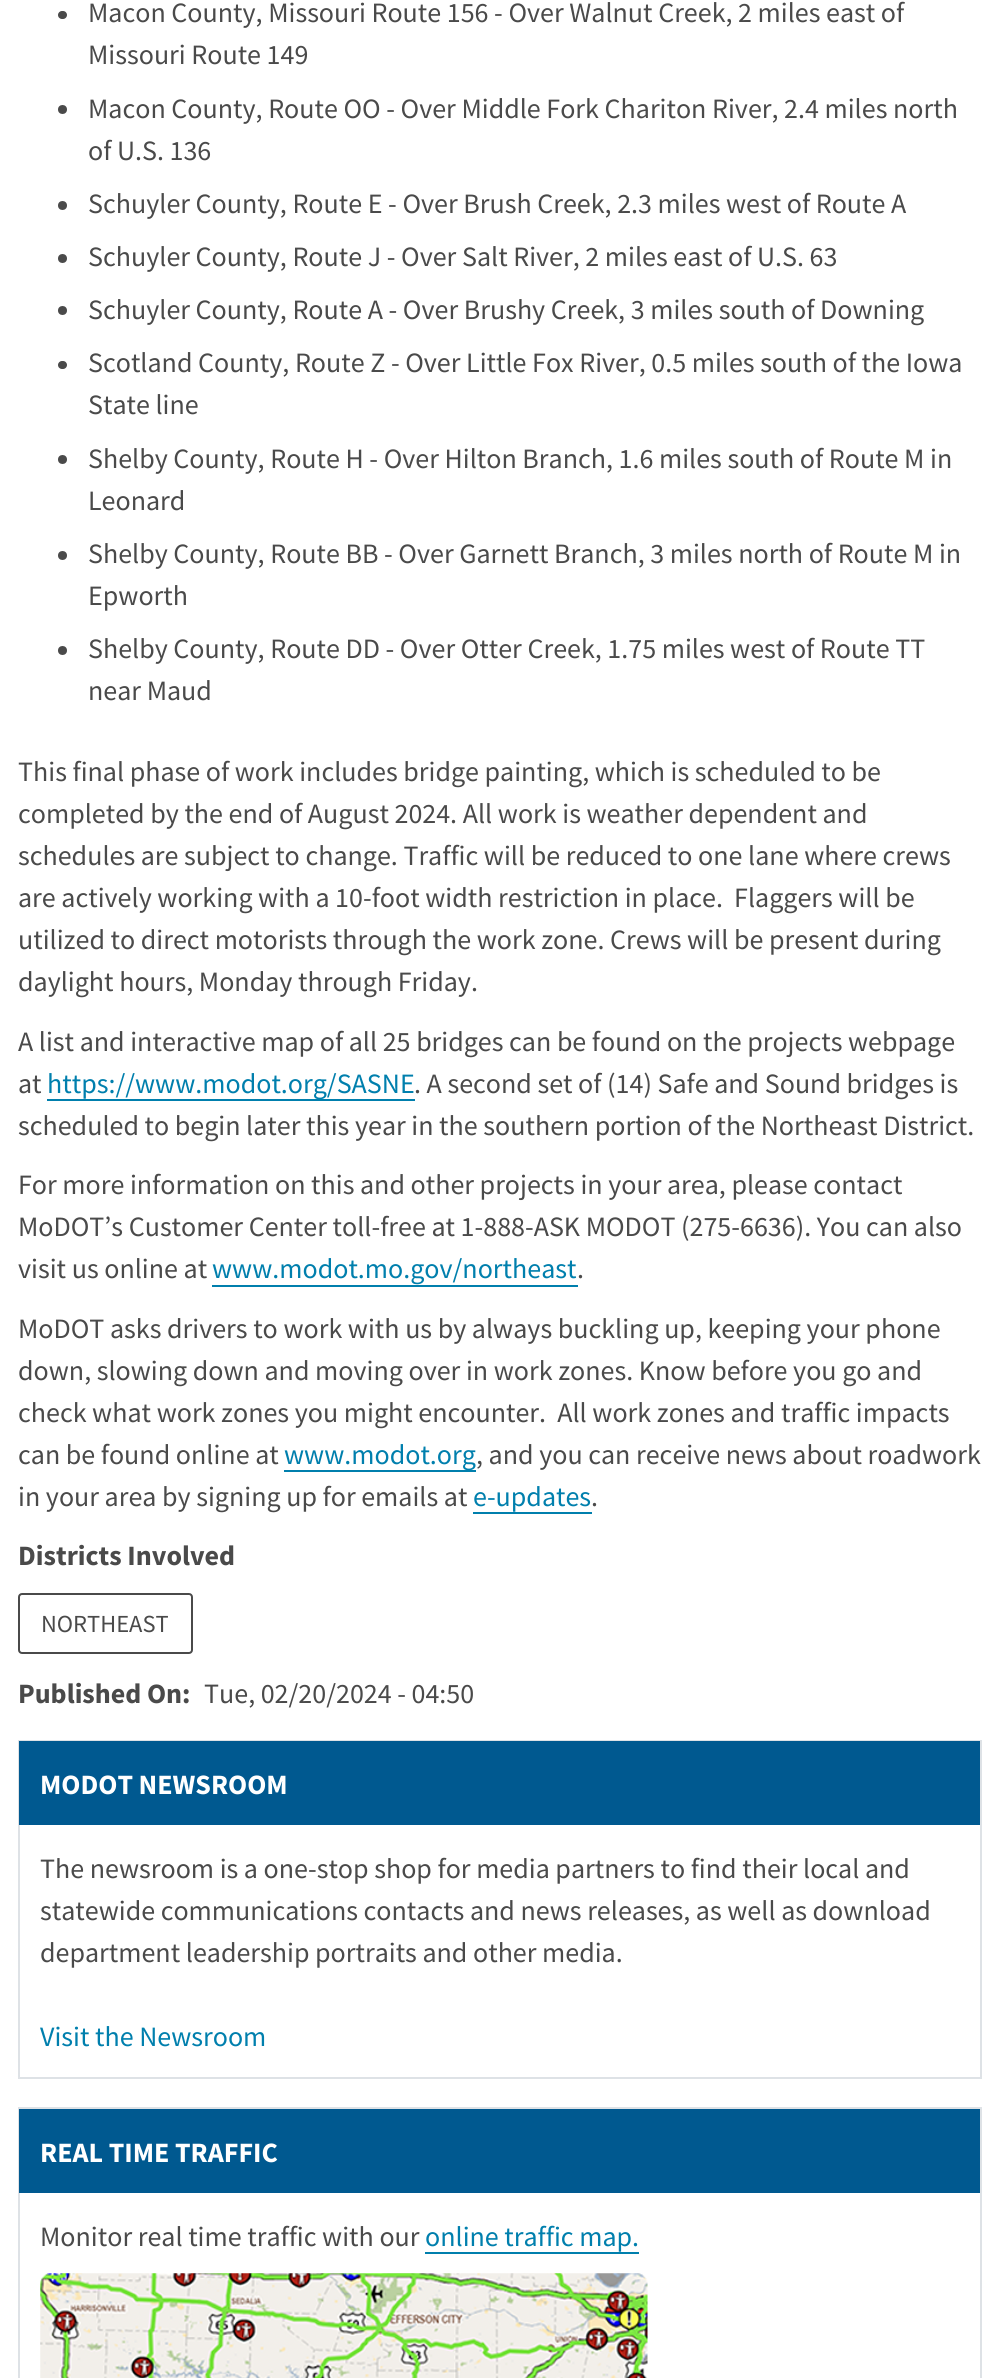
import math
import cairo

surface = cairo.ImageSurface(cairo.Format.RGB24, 998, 2378)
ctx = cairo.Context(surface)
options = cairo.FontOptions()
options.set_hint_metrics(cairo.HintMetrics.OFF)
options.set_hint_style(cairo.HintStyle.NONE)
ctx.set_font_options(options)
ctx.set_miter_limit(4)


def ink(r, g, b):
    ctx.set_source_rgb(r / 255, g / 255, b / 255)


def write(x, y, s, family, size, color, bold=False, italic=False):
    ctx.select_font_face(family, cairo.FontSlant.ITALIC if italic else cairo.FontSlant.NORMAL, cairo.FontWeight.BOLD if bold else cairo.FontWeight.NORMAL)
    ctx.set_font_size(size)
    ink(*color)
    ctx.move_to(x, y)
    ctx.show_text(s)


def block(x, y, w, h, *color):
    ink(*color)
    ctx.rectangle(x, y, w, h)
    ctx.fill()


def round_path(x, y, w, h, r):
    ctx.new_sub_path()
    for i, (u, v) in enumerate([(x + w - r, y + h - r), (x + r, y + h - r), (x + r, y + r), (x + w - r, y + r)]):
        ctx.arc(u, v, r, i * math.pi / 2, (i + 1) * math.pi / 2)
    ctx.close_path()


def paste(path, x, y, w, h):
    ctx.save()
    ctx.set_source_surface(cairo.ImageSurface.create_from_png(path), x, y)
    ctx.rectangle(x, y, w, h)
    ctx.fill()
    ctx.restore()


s1 = dict(family="Source Sans Pro", size=28, color=(74, 74, 74))
s2 = dict(family="Source Sans Pro", size=28, color=(0, 127, 173))
s3 = dict(family="Source Sans Pro", size=28, color=(74, 74, 74), bold=True)
s4 = dict(family="Source Sans Pro", size=24.5, color=(74, 74, 74))
s5 = dict(family="Source Sans Pro", size=28, color=(255, 255, 255), bold=True)

ink(255, 255, 255)
ctx.paint()
ink(74, 74, 74)
round_path(58, 11, 9, 8, 4)
ctx.fill()
write(88, 22, "Macon County, Missouri Route 156 - Over Walnut Creek, 2 miles east of", **s1)
write(88, 64, "Missouri Route 149", **s1)
ctx.new_path()
ctx.arc(62.5, 109.5, 4.5, 0, 2 * math.pi)
ctx.fill()
write(88, 118, "Macon County, Route OO - Over Middle Fork Chariton River, 2.4 miles north", **s1)
write(88, 160, "of U.S. 136", **s1)
ctx.new_path()
ctx.arc(62.5, 205.5, 4.5, 0, 2 * math.pi)
ctx.fill()
write(88, 213, "Schuyler County, Route E - Over Brush Creek, 2.3 miles west of Route A", **s1)
ctx.new_path()
ctx.arc(62.5, 258.5, 4.5, 0, 2 * math.pi)
ctx.fill()
write(88, 266, "Schuyler County, Route J - Over Salt River, 2 miles east of U.S. 63", **s1)
ctx.new_path()
ctx.arc(62.5, 310.5, 4.5, 0, 2 * math.pi)
ctx.fill()
write(88, 319, "Schuyler County, Route A - Over Brushy Creek, 3 miles south of Downing", **s1)
round_path(58, 361, 9, 8, 4)
ctx.fill()
write(88, 372, "Scotland County, Route Z - Over Little Fox River, 0.5 miles south of the Iowa", **s1)
write(88, 414, "State line", **s1)
ctx.new_path()
ctx.arc(62.5, 459.5, 4.5, 0, 2 * math.pi)
ctx.fill()
write(88, 468, "Shelby County, Route H - Over Hilton Branch, 1.6 miles south of Route M in", **s1)
write(88, 510, "Leonard", **s1)
ctx.new_path()
ctx.arc(62.5, 555.5, 4.5, 0, 2 * math.pi)
ctx.fill()
write(88, 563, "Shelby County, Route BB - Over Garnett Branch, 3 miles north of Route M in", **s1)
write(88, 605, "Epworth", **s1)
ctx.new_path()
ctx.arc(62.5, 650.5, 4.5, 0, 2 * math.pi)
ctx.fill()
write(88, 658, "Shelby County, Route DD - Over Otter Creek, 1.75 miles west of Route TT", **s1)
write(88, 700, "near Maud", **s1)
write(18, 781, "This final phase of work includes bridge painting, which is scheduled to be", **s1)
write(18, 823, "completed by the end of August 2024. All work is weather dependent and", **s1)
write(18, 865, "schedules are subject to change. Traffic will be reduced to one lane where crews", **s1)
write(18, 907, "are actively working with a 10-foot width restriction in place.  Flaggers will be", **s1)
write(18, 949, "utilized to direct motorists through the work zone. Crews will be present during", **s1)
write(18, 991, "daylight hours, Monday through Friday.", **s1)
write(18, 1051, "A list and interactive map of all 25 bridges can be found on the projects webpage", **s1)
write(18, 1093, "at", **s1)
block(47, 1099, 368, 2, 0, 127, 173)
write(47, 1093, "https://www.modot.org/SASNE", **s2)
write(414, 1093, ". A second set of (14) Safe and Sound bridges is", **s1)
write(18, 1135, "scheduled to begin later this year in the southern portion of the Northeast District.", **s1)
write(18, 1194, "For more information on this and other projects in your area, please contact", **s1)
write(18, 1236, "MoDOT’s Customer Center toll-free at 1-888-ASK MODOT (275-6636). You can also", **s1)
write(18, 1278, "visit us online at", **s1)
write(212, 1278, "www.modot.mo.gov/northeast", **s2)
block(212, 1285, 366, 2, 0, 127, 173)
write(577, 1278, ".", **s1)
write(18, 1338, "MoDOT asks drivers to work with us by always buckling up, keeping your phone", **s1)
write(18, 1380, "down, slowing down and moving over in work zones. Know before you go and", **s1)
write(18, 1422, "check what work zones you might encounter.  All work zones and traffic impacts", **s1)
write(18, 1464, "can be found online at", **s1)
block(284, 1470, 192, 2, 0, 127, 173)
write(284, 1464, "www.modot.org", **s2)
write(476, 1464, ", and you can receive news about roadwork", **s1)
write(18, 1506, "in your area by signing up for emails at", **s1)
write(473, 1506, "e-updates", **s2)
block(473, 1512, 119, 2, 0, 127, 173)
write(591, 1506, ".", **s1)
write(18, 1565, "Districts Involved", **s3)
round_path(19, 1594, 173, 59, 3)
ctx.stroke()
write(41, 1632, "NORTHEAST", **s4)
write(18, 1703, "Published On:", **s3)
write(204, 1703, "Tue, 02/20/2024 - 04:50", **s1)
ctx.rectangle(19, 1741, 962, 337)
ink(222, 226, 230)
ctx.stroke()
block(19, 1741, 961, 84, 0, 89, 144)
write(40, 1794, "MODOT NEWSROOM", **s5)
write(40, 1878, "The newsroom is a one-stop shop for media partners to find their local and", **s1)
write(40, 1920, "statewide communications contacts and news releases, as well as download", **s1)
write(40, 1962, "department leadership portraits and other media.", **s1)
write(40, 2046, "Visit the Newsroom", **s2)
ctx.rectangle(19, 2108, 962, 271)
ink(222, 226, 230)
ctx.stroke()
block(19, 2109, 961, 84, 0, 89, 144)
write(40, 2162, "REAL TIME TRAFFIC", **s5)
write(40, 2246, "Monitor real time traffic with our", **s1)
write(425, 2246, "online traffic map.", **s2)
block(425, 2252, 214, 2, 0, 127, 173)
paste("pic1.png", 40, 2273, 608, 105)
surface.write_to_png("screenshot.png")
